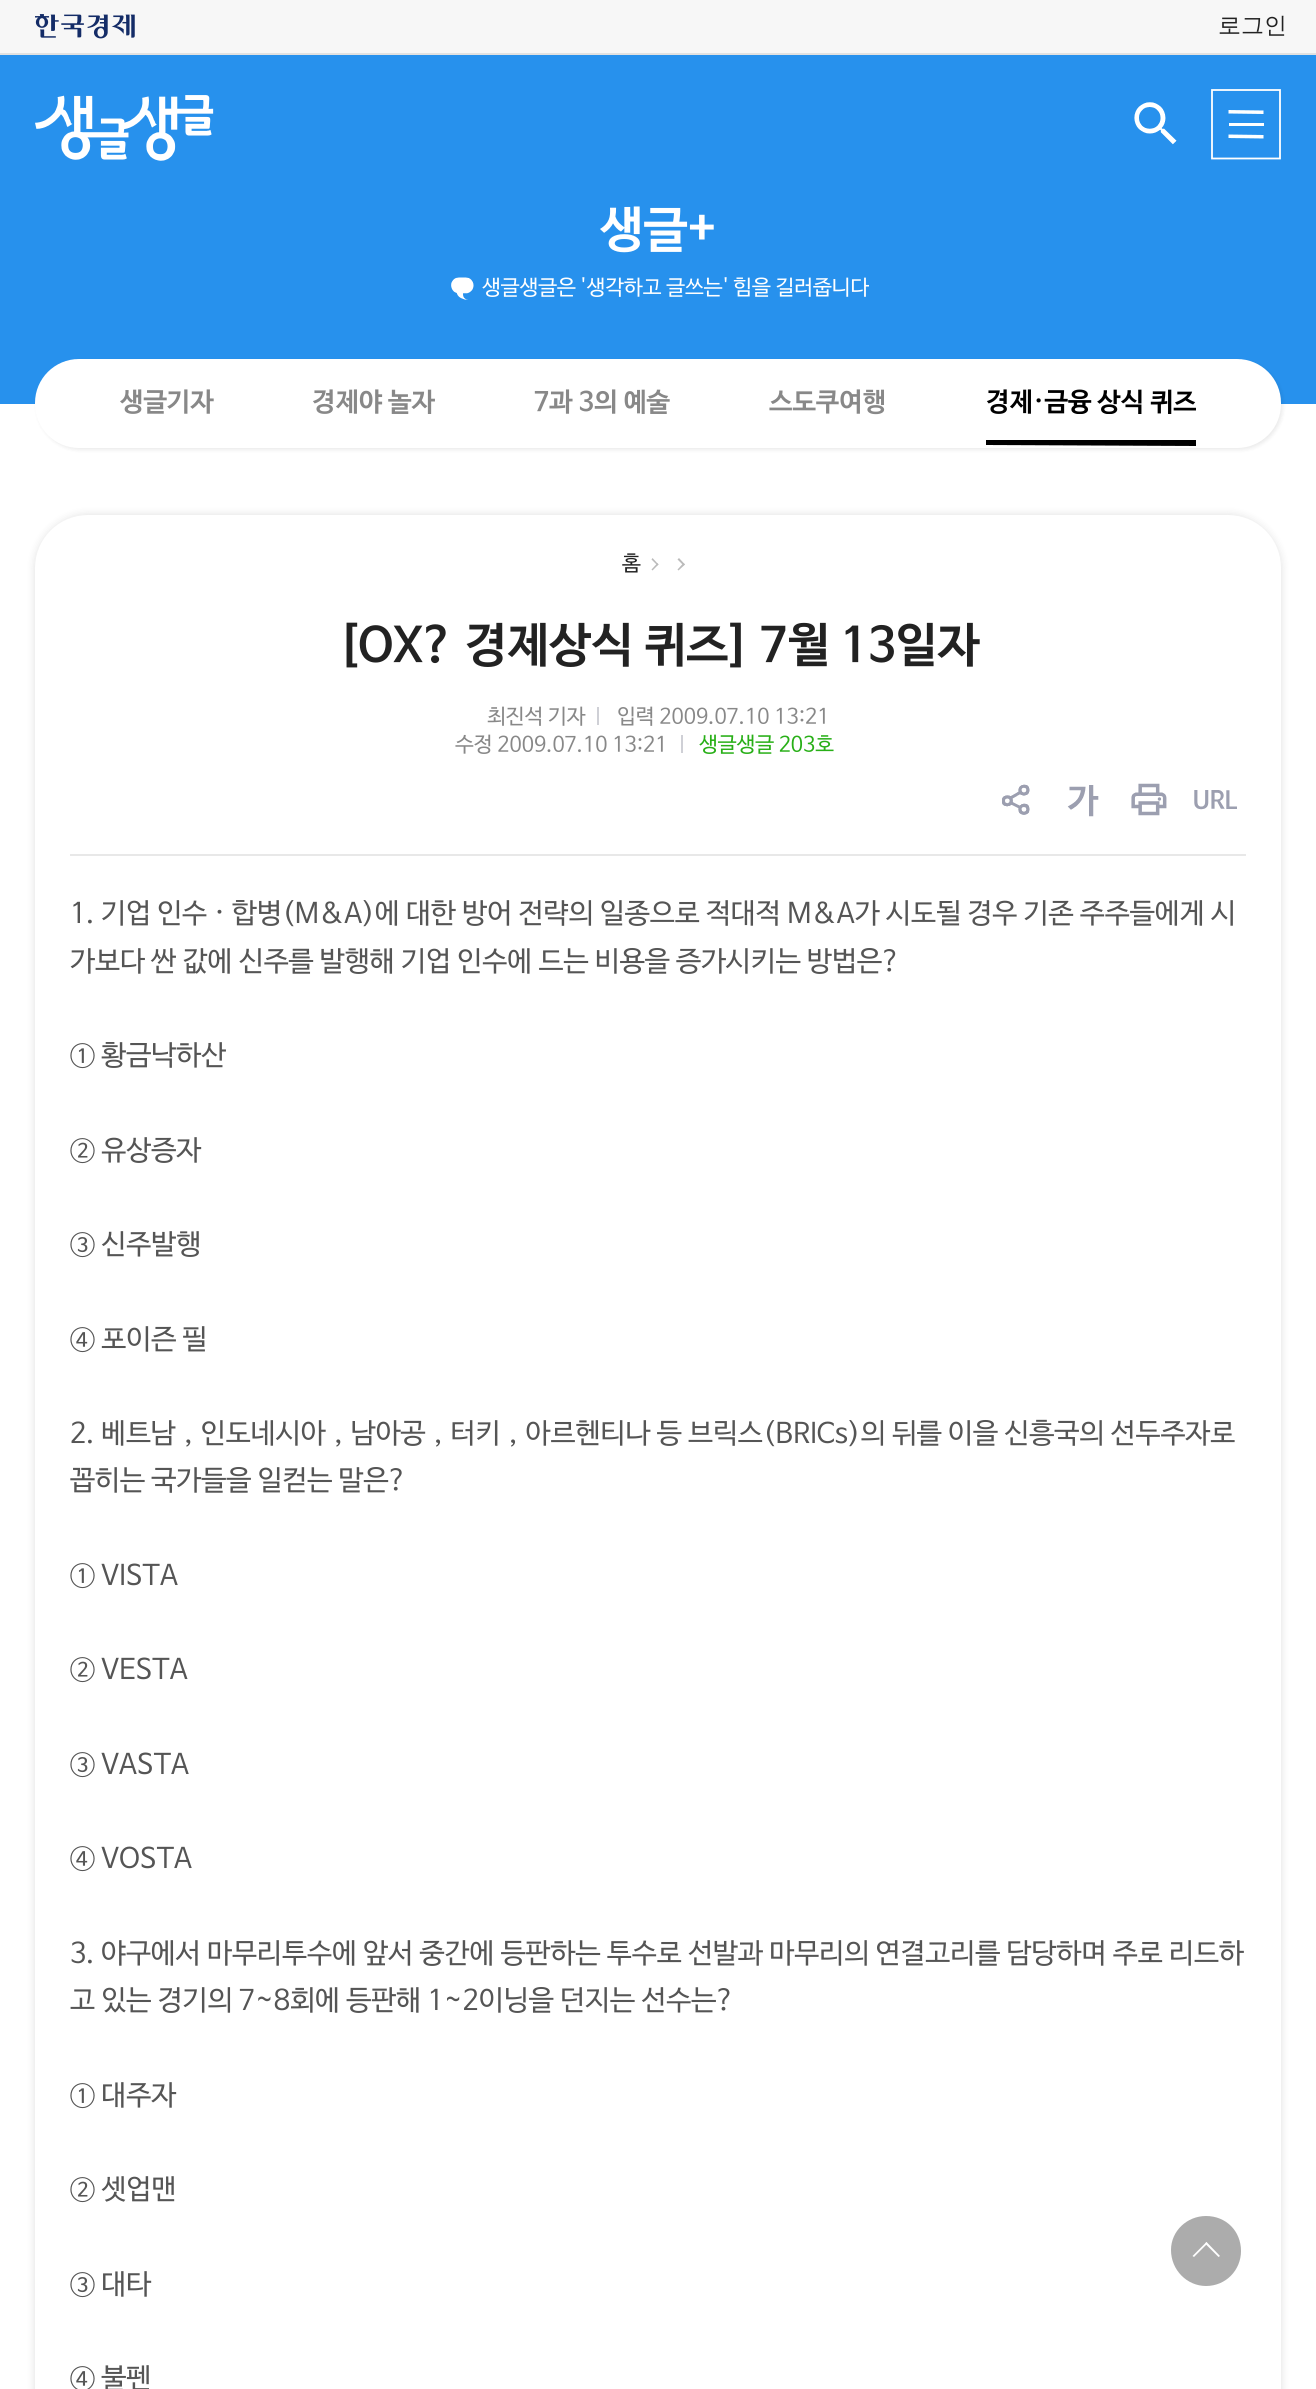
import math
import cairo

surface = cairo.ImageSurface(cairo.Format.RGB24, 1316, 2389)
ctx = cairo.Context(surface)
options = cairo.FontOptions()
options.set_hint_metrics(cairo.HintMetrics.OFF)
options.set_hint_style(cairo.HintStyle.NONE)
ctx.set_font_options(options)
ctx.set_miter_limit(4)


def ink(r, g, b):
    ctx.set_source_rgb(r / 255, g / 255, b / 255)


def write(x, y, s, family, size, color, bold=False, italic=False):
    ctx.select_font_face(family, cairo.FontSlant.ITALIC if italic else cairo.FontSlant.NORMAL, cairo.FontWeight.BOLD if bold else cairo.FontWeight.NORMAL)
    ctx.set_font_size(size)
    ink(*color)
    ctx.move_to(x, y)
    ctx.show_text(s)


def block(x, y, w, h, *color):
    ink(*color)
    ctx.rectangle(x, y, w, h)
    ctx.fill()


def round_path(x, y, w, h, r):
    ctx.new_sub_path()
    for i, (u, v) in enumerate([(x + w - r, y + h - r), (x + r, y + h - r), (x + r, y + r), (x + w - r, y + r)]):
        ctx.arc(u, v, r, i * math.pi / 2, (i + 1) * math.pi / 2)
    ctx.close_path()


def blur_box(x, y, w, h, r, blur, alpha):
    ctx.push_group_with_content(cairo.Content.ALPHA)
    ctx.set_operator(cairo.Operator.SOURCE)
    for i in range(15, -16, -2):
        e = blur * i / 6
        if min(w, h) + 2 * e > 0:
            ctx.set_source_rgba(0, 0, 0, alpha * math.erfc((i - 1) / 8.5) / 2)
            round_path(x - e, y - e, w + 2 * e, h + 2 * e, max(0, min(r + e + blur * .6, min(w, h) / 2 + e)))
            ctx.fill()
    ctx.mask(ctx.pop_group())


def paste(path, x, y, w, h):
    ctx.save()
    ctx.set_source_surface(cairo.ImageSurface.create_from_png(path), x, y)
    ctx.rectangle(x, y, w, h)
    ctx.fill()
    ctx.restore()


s1 = dict(family="WenQuanYi Zen Hei Medium", size=23, color=(34, 34, 34))
s2 = dict(family="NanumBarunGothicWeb", size=49, color=(255, 255, 255), bold=True)
s3 = dict(family="NanumBarunGothicWeb", size=21, color=(255, 255, 255))
s4 = dict(family="NanumBarunGothicWeb", size=26.25, color=(136, 136, 136), bold=True)
s5 = dict(family="NanumBarunGothicWeb", size=26.25, color=(0, 0, 0), bold=True)
s6 = dict(family="NanumBarunGothicWeb", size=21, color=(34, 34, 34))
s7 = dict(family="NanumBarunGothicWeb", size=47.25, color=(34, 34, 34), bold=True)
s8 = dict(family="NanumBarunGothicWeb", size=21, color=(136, 136, 136))
s9 = dict(family="NanumBarunGothicWeb", size=21, color=(40, 175, 23))
s10 = dict(family="NanumBarunGothicWeb", size=28, color=(85, 85, 85))

ink(255, 255, 255)
ctx.paint()
block(0, 0, 1316, 53, 247, 247, 247)
block(0, 53, 1316, 2, 225, 225, 225)
paste("pic1.png", 35, 14, 100, 25)
write(1218, 33, "로그인", **s1)
block(0, 55, 1316, 349, 39, 145, 237)
paste("pic2.png", 35, 95, 179, 66)
paste("pic3.png", 1134, 102, 43, 43)
ctx.new_path()
ctx.move_to(1212, 90)
ctx.line_to(1280, 90)
ctx.line_to(1280, 158.5)
ctx.line_to(1212, 158.5)
ctx.close_path()
ink(255, 255, 255)
ctx.set_line_width(1.8)
ctx.stroke()
block(1229, 123, 35, 3, 255, 255, 255)
ctx.new_path()
ctx.move_to(1228.5, 110)
ctx.line_to(1263.5, 110.5)
ctx.line_to(1263.5, 114)
ctx.line_to(1228.5, 113.5)
ctx.close_path()
ctx.move_to(1228.5, 134.5)
ctx.line_to(1263.5, 135)
ctx.line_to(1263.5, 138.5)
ctx.line_to(1228.5, 138)
ctx.close_path()
ctx.fill()
write(600, 245, "생글+", **s2)
paste("pic4.png", 451, 277, 23, 23)
write(482, 294, "생글생글은 '생각하고 글쓰는' 힘을 길러줍니다", **s3)
ink(0, 0, 0)
blur_box(37, 361, 1246, 89, 44, 2, 0.08)
ink(255, 255, 255)
round_path(35, 359, 1246, 89, 44)
ctx.fill()
ctx.save()
ctx.translate(120, 410)
ctx.rotate(0.1 * math.pi / 180)
write(0, 0, "생글기자", **s4)
ctx.restore()
ctx.save()
ctx.translate(312, 410)
ctx.rotate(0.1 * math.pi / 180)
write(0, 0, "경제야 놀자", **s4)
ctx.restore()
ctx.save()
ctx.translate(534, 410)
ctx.rotate(0.1 * math.pi / 180)
write(0, 0, "7과 3의 예술", **s4)
ctx.restore()
ctx.save()
ctx.translate(769, 410)
ctx.rotate(0.1 * math.pi / 180)
write(0, 0, "스도쿠여행", **s4)
ctx.restore()
ctx.save()
ctx.translate(986, 410)
ctx.rotate(0.1 * math.pi / 180)
write(0, 0, "경제·금융 상식 퀴즈", **s5)
ctx.restore()
ink(0, 0, 0)
ctx.new_path()
ctx.move_to(986, 440)
ctx.line_to(1196, 440)
ctx.line_to(1196, 446)
ctx.line_to(986, 445)
ctx.close_path()
ctx.fill()
ink(0, 0, 0)
blur_box(35, 515, 1246, 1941, 53, 4.5, 0.13)
ink(255, 255, 255)
round_path(35, 515, 1246, 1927, 53)
ctx.fill()
ctx.save()
ctx.translate(622, 570)
ctx.rotate(0.1 * math.pi / 180)
write(0, 0, "홈", **s6)
ctx.restore()
ink(187, 187, 187)
ctx.new_path()
ctx.move_to(652.5, 558)
ctx.line_to(658.5, 564.5)
ctx.line_to(657.5, 565.5)
ctx.line_to(651.5, 559.5)
ctx.close_path()
ctx.fill()
ctx.new_path()
ctx.move_to(657.5, 563)
ctx.line_to(658.5, 564.5)
ctx.line_to(652.5, 570.5)
ctx.line_to(651.5, 569.5)
ctx.close_path()
ctx.move_to(679, 558)
ctx.line_to(685, 564.5)
ctx.line_to(683.5, 565.5)
ctx.line_to(677.5, 559.5)
ctx.close_path()
ctx.fill()
ctx.new_path()
ctx.move_to(683.5, 563)
ctx.line_to(685, 564.5)
ctx.line_to(678.5, 570.5)
ctx.line_to(677.5, 569.5)
ctx.close_path()
ctx.fill()
block(70, 854, 1176, 2, 232, 232, 232)
write(337, 660, "[OX? 경제상식 퀴즈] 7월 13일자", **s7)
write(487, 723, "최진석 기자", **s8)
block(597, 707, 2, 18, 207, 208, 214)
write(617, 723, "입력 2009.07.10 13:21", **s8)
write(455, 751, "수정 2009.07.10 13:21", **s8)
block(681, 735, 2, 18, 207, 208, 214)
write(699, 751, "생글생글 203호", **s9)
paste("pic5.png", 1002, 784, 28, 31)
paste("pic6.png", 1067, 785, 32, 32)
paste("pic7.png", 1131, 783, 36, 33)
paste("pic8.png", 1194, 790, 43, 20)
write(70, 922, "1. 기업 인수 · 합병(M&A)에 대한 방어 전략의 일종으로 적대적 M&A가 시도될 경우 기존 주주들에게 시", **s10)
write(70, 970, "가보다 싼 값에 신주를 발행해 기업 인수에 드는 비용을 증가시키는 방법은?", **s10)
write(70, 1064, "① 황금낙하산", **s10)
write(70, 1159, "② 유상증자", **s10)
write(70, 1253, "③ 신주발행", **s10)
write(70, 1348, "④ 포이즌 필", **s10)
write(70, 1442, "2. 베트남，인도네시아，남아공，터키，아르헨티나 등 브릭스(BRICs)의 뒤를 이을 신흥국의 선두주자로", **s10)
write(70, 1489, "꼽히는 국가들을 일컫는 말은?", **s10)
write(70, 1584, "① VISTA", **s10)
write(70, 1678, "② VESTA", **s10)
write(70, 1773, "③ VASTA", **s10)
write(70, 1867, "④ VOSTA", **s10)
write(70, 1962, "3. 야구에서 마무리투수에 앞서 중간에 등판하는 투수로 선발과 마무리의 연결고리를 담당하며 주로 리드하", **s10)
write(70, 2009, "고 있는 경기의 7~8회에 등판해 1~2이닝을 던지는 선수는?", **s10)
write(70, 2104, "① 대주자", **s10)
write(70, 2198, "② 셋업맨", **s10)
write(70, 2293, "③ 대타", **s10)
write(70, 2387, "④ 불펜", **s10)
ink(172, 172, 172)
ctx.new_path()
ctx.move_to(1206, 2216)
ctx.curve_to(1226, 2216, 1241, 2231, 1241, 2251)
ctx.curve_to(1241, 2270, 1226, 2286, 1206, 2286)
ctx.curve_to(1187, 2286, 1171, 2270, 1171, 2250)
ctx.curve_to(1171, 2231, 1187, 2216, 1206, 2216)
ctx.close_path()
ctx.fill()
ink(255, 255, 255)
ctx.new_path()
ctx.move_to(1206.5, 2242)
ctx.line_to(1220, 2256)
ctx.line_to(1218.5, 2257)
ctx.line_to(1205, 2243.5)
ctx.close_path()
ctx.fill()
ctx.new_path()
ctx.move_to(1206.5, 2242)
ctx.line_to(1207.5, 2243.5)
ctx.line_to(1194, 2257)
ctx.line_to(1192.5, 2256)
ctx.close_path()
ctx.fill()
surface.write_to_png("screenshot.png")
